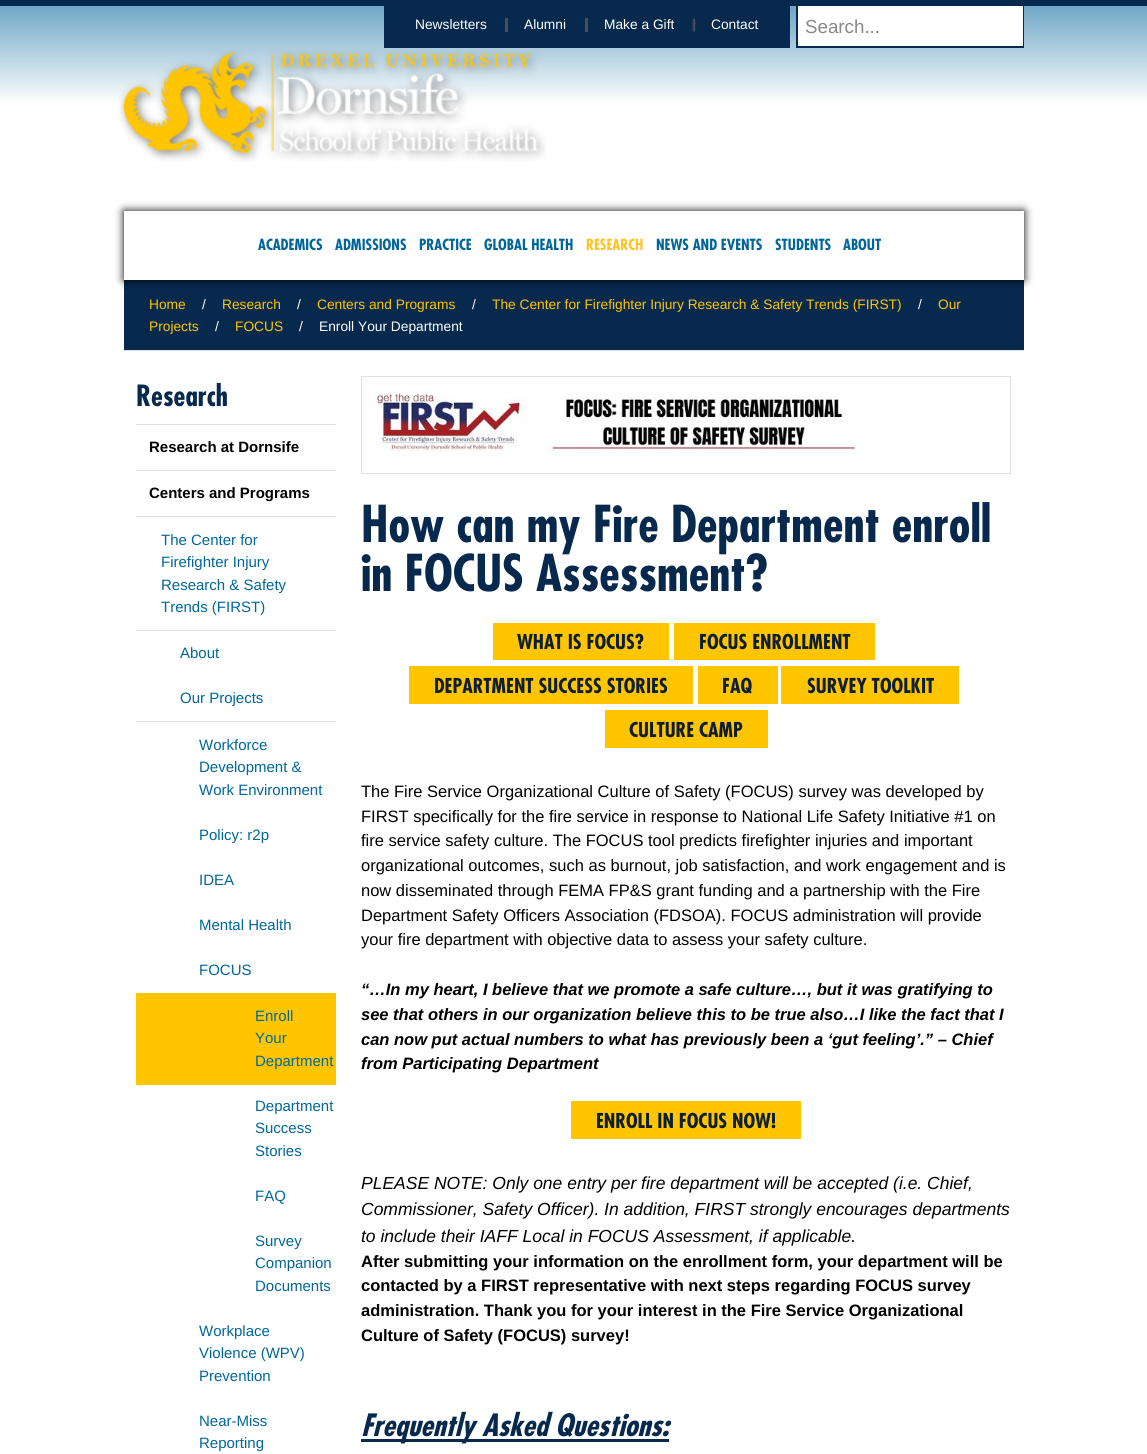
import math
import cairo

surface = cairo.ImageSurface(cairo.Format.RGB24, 1147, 1454)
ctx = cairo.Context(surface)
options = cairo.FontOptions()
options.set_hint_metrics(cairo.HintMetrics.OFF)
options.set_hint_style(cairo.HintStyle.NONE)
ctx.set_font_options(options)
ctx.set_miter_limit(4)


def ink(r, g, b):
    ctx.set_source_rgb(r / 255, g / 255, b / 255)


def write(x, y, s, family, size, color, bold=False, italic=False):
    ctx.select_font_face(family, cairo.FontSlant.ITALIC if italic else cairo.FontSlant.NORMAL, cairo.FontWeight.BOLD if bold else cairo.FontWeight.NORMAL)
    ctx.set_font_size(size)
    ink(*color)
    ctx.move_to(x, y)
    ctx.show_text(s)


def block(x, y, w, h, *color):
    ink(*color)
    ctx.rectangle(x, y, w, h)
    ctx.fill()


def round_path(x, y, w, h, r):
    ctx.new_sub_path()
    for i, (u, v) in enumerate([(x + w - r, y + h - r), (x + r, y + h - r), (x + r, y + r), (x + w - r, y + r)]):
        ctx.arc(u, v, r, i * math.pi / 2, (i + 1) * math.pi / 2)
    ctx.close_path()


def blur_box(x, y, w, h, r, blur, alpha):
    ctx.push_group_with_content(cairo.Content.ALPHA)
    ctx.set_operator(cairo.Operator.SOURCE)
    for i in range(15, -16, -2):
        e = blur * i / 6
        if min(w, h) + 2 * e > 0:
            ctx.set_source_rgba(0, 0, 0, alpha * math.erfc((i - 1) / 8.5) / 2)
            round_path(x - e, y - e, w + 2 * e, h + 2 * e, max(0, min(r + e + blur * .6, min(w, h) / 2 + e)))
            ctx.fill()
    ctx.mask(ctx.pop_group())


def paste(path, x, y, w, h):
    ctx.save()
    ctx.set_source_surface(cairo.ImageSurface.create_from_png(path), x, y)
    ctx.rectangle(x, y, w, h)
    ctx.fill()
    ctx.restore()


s1 = dict(family="Liberation Sans", size=13.75, color=(255, 255, 255))
s2 = dict(family="Liberation Sans", size=18.75, color=(136, 136, 136))
s3 = dict(family="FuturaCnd", size=15, color=(0, 102, 153), bold=True)
s4 = dict(family="FuturaCnd", size=15, color=(255, 195, 37), bold=True)
s5 = dict(family="Liberation Sans", size=13.75, color=(255, 198, 0))
s6 = dict(family="FuturaCnd", size=28.5, color=(7, 41, 77), bold=True)
s7 = dict(family="Liberation Sans", size=15, color=(0, 0, 0), bold=True)
s8 = dict(family="Liberation Sans", size=15, color=(0, 102, 153))
s9 = dict(family="FuturaCnd", size=49.5, color=(7, 41, 77), bold=True)
s10 = dict(family="FuturaCnd", size=20, color=(13, 30, 49), bold=True)
s11 = dict(family="Liberation Sans", size=16.5, color=(0, 0, 0))
s12 = dict(family="Liberation Sans", size=16.5, color=(0, 0, 0), bold=True, italic=True)
s13 = dict(family="Liberation Sans", size=17.5, color=(0, 0, 0), italic=True)
s14 = dict(family="Liberation Sans", size=16.5, color=(0, 0, 0), bold=True)
s15 = dict(family="FuturaCnd", size=30, color=(7, 41, 77), bold=True, italic=True)

ink(255, 255, 255)
ctx.paint()
gradient = cairo.LinearGradient(574, 0, 574, 523)
gradient.add_color_stop_rgba(0, 0.4, 0.631, 0.761, 1)
gradient.add_color_stop_rgba(0.2, 1, 1, 1, 1)
ctx.set_source(gradient)
ctx.rectangle(0, 6, 1147, 97)
ctx.fill()
block(0, 0, 1147, 6, 7, 41, 77)
block(384, 6, 406, 42, 7, 41, 77)
write(415, 29, "Newsletters", **s1)
block(505, 18, 3, 14, 67, 79, 93)
write(524, 29, "Alumni", **s1)
block(585, 18, 3, 14, 67, 79, 93)
write(604, 29, "Make a Gift", **s1)
paste("pic1.png", 692, 18, 4, 14)
write(711, 29, "Contact", **s1)
block(796, 6, 228, 42, 7, 41, 77)
block(798, 6, 225, 40, 255, 255, 255)
write(805, 33, "Search...", **s2)
paste("pic2.png", 119, 50, 427, 112)
block(124, 280, 900, 70, 7, 41, 77)
ink(0, 0, 0)
blur_box(124, 211, 900, 69, 0, 4.5, 1)
block(124, 211, 900, 69, 255, 255, 255)
write(258, 250, "ACADEMICS", **s3)
write(335, 250, "ADMISSIONS", **s3)
write(419, 250, "PRACTICE", **s3)
write(484, 250, "GLOBAL HEALTH", **s3)
write(586, 250, "RESEARCH", **s4)
write(656, 250, "NEWS AND EVENTS", **s3)
write(775, 250, "STUDENTS", **s3)
write(843, 250, "ABOUT", **s3)
block(124, 350, 900, 1, 225, 225, 224)
write(149, 309, "Home", **s5)
write(202, 309, "/", **s1)
write(222, 309, "Research", **s5)
write(297, 309, "/", **s1)
write(317, 309, "Centers and Programs", **s5)
write(472, 309, "/", **s1)
write(492, 309, "The Center for Firefighter Injury Research & Safety Trends (FIRST)", **s5)
write(918, 309, "/", **s1)
write(938, 309, "Our", **s5)
write(149, 331, "Projects", **s5)
write(215, 331, "/", **s1)
write(235, 331, "FOCUS", **s5)
write(299, 331, "/", **s1)
write(319, 331, "Enroll Your Department", **s1)
write(136, 406, "Research", **s6)
block(136, 424, 200, 1, 225, 225, 224)
block(136, 470, 200, 1, 225, 225, 224)
write(149, 452, "Research at Dornsife", **s7)
write(149, 498, "Centers and Programs", **s7)
block(136, 516, 200, 1, 225, 225, 224)
write(161, 545, "The Center for", **s8)
write(161, 567, "Firefighter Injury", **s8)
write(161, 590, "Research & Safety", **s8)
write(161, 612, "Trends (FIRST)", **s8)
block(136, 630, 200, 1, 225, 225, 224)
write(180, 658, "About", **s8)
write(180, 703, "Our Projects", **s8)
block(136, 721, 200, 1, 225, 225, 224)
write(199, 750, "Workforce", **s8)
write(199, 772, "Development &", **s8)
write(199, 795, "Work Environment", **s8)
write(199, 840, "Policy: r2p", **s8)
write(199, 885, "IDEA", **s8)
write(199, 930, "Mental Health", **s8)
write(199, 975, "FOCUS", **s8)
block(136, 993, 200, 92, 255, 198, 0)
write(255, 1021, "Enroll", **s8)
write(255, 1043, "Your", **s8)
write(255, 1066, "Department", **s8)
write(255, 1111, "Department", **s8)
write(255, 1133, "Success", **s8)
write(255, 1156, "Stories", **s8)
write(255, 1201, "FAQ", **s8)
write(255, 1246, "Survey", **s8)
write(255, 1268, "Companion", **s8)
write(255, 1291, "Documents", **s8)
write(199, 1336, "Workplace", **s8)
write(199, 1358, "Violence (WPV)", **s8)
write(199, 1381, "Prevention", **s8)
write(199, 1426, "Near-Miss", **s8)
write(199, 1448, "Reporting", **s8)
ctx.rectangle(361.5, 376.5, 649, 97)
ink(225, 225, 224)
ctx.set_line_width(1)
ctx.stroke()
paste("pic3.png", 375, 390, 483, 62)
write(361, 542, "How can my Fire Department enroll", **s9)
write(361, 591, "in FOCUS Assessment?", **s9)
block(493, 623, 176, 37, 255, 198, 0)
write(517, 649, "WHAT IS FOCUS?", **s10)
block(674, 623, 201, 37, 255, 198, 0)
write(699, 649, "FOCUS ENROLLMENT", **s10)
block(409, 666, 284, 38, 255, 198, 0)
write(434, 693, "DEPARTMENT SUCCESS STORIES", **s10)
block(698, 666, 80, 38, 255, 198, 0)
write(722, 693, "FAQ", **s10)
block(781, 666, 178, 38, 255, 198, 0)
write(807, 693, "SURVEY TOOLKIT", **s10)
block(605, 710, 163, 38, 255, 198, 0)
write(629, 737, "CULTURE CAMP", **s10)
write(361, 797, "The Fire Service Organizational Culture of Safety (FOCUS) survey was developed by", **s11)
write(361, 822, "FIRST specifically for the fire service in response to National Life Safety Initiative #1 on", **s11)
write(361, 846, "fire service safety culture. The FOCUS tool predicts firefighter injuries and important", **s11)
write(361, 871, "organizational outcomes, such as burnout, job satisfaction, and work engagement and is", **s11)
write(361, 896, "now disseminated through FEMA FP&S grant funding and a partnership with the Fire", **s11)
write(361, 921, "Department Safety Officers Association (FDSOA). FOCUS administration will provide", **s11)
write(361, 945, "your fire department with objective data to assess your safety culture.", **s11)
write(361, 995, "“…In my heart, I believe that we promote a safe culture…, but it was gratifying to", **s12)
write(361, 1020, "see that others in our organization believe this to be true also…I like the fact that I", **s12)
write(361, 1045, "can now put actual numbers to what has previously been a ‘gut feeling’.” – Chief", **s12)
write(361, 1069, "from Participating Department", **s12)
block(571, 1101, 230, 38, 255, 198, 0)
write(596, 1128, "ENROLL IN FOCUS NOW!", **s10)
write(361, 1189, "PLEASE NOTE: Only one entry per fire department will be accepted (i.e. Chief,", **s13)
write(361, 1215, "Commissioner, Safety Officer). In addition, FIRST strongly encourages departments", **s13)
write(361, 1242, "to include their IAFF Local in FOCUS Assessment, if applicable.", **s13)
write(361, 1267, "After submitting your information on the enrollment form, your department will be", **s14)
write(361, 1291, "contacted by a FIRST representative with next steps regarding FOCUS survey", **s14)
write(361, 1316, "administration. Thank you for your interest in the Fire Service Organizational", **s14)
write(361, 1341, "Culture of Safety (FOCUS) survey!", **s14)
block(361, 1439, 308, 3, 7, 41, 77)
write(361, 1436, "Frequently Asked Questions:", **s15)
surface.write_to_png("screenshot.png")
